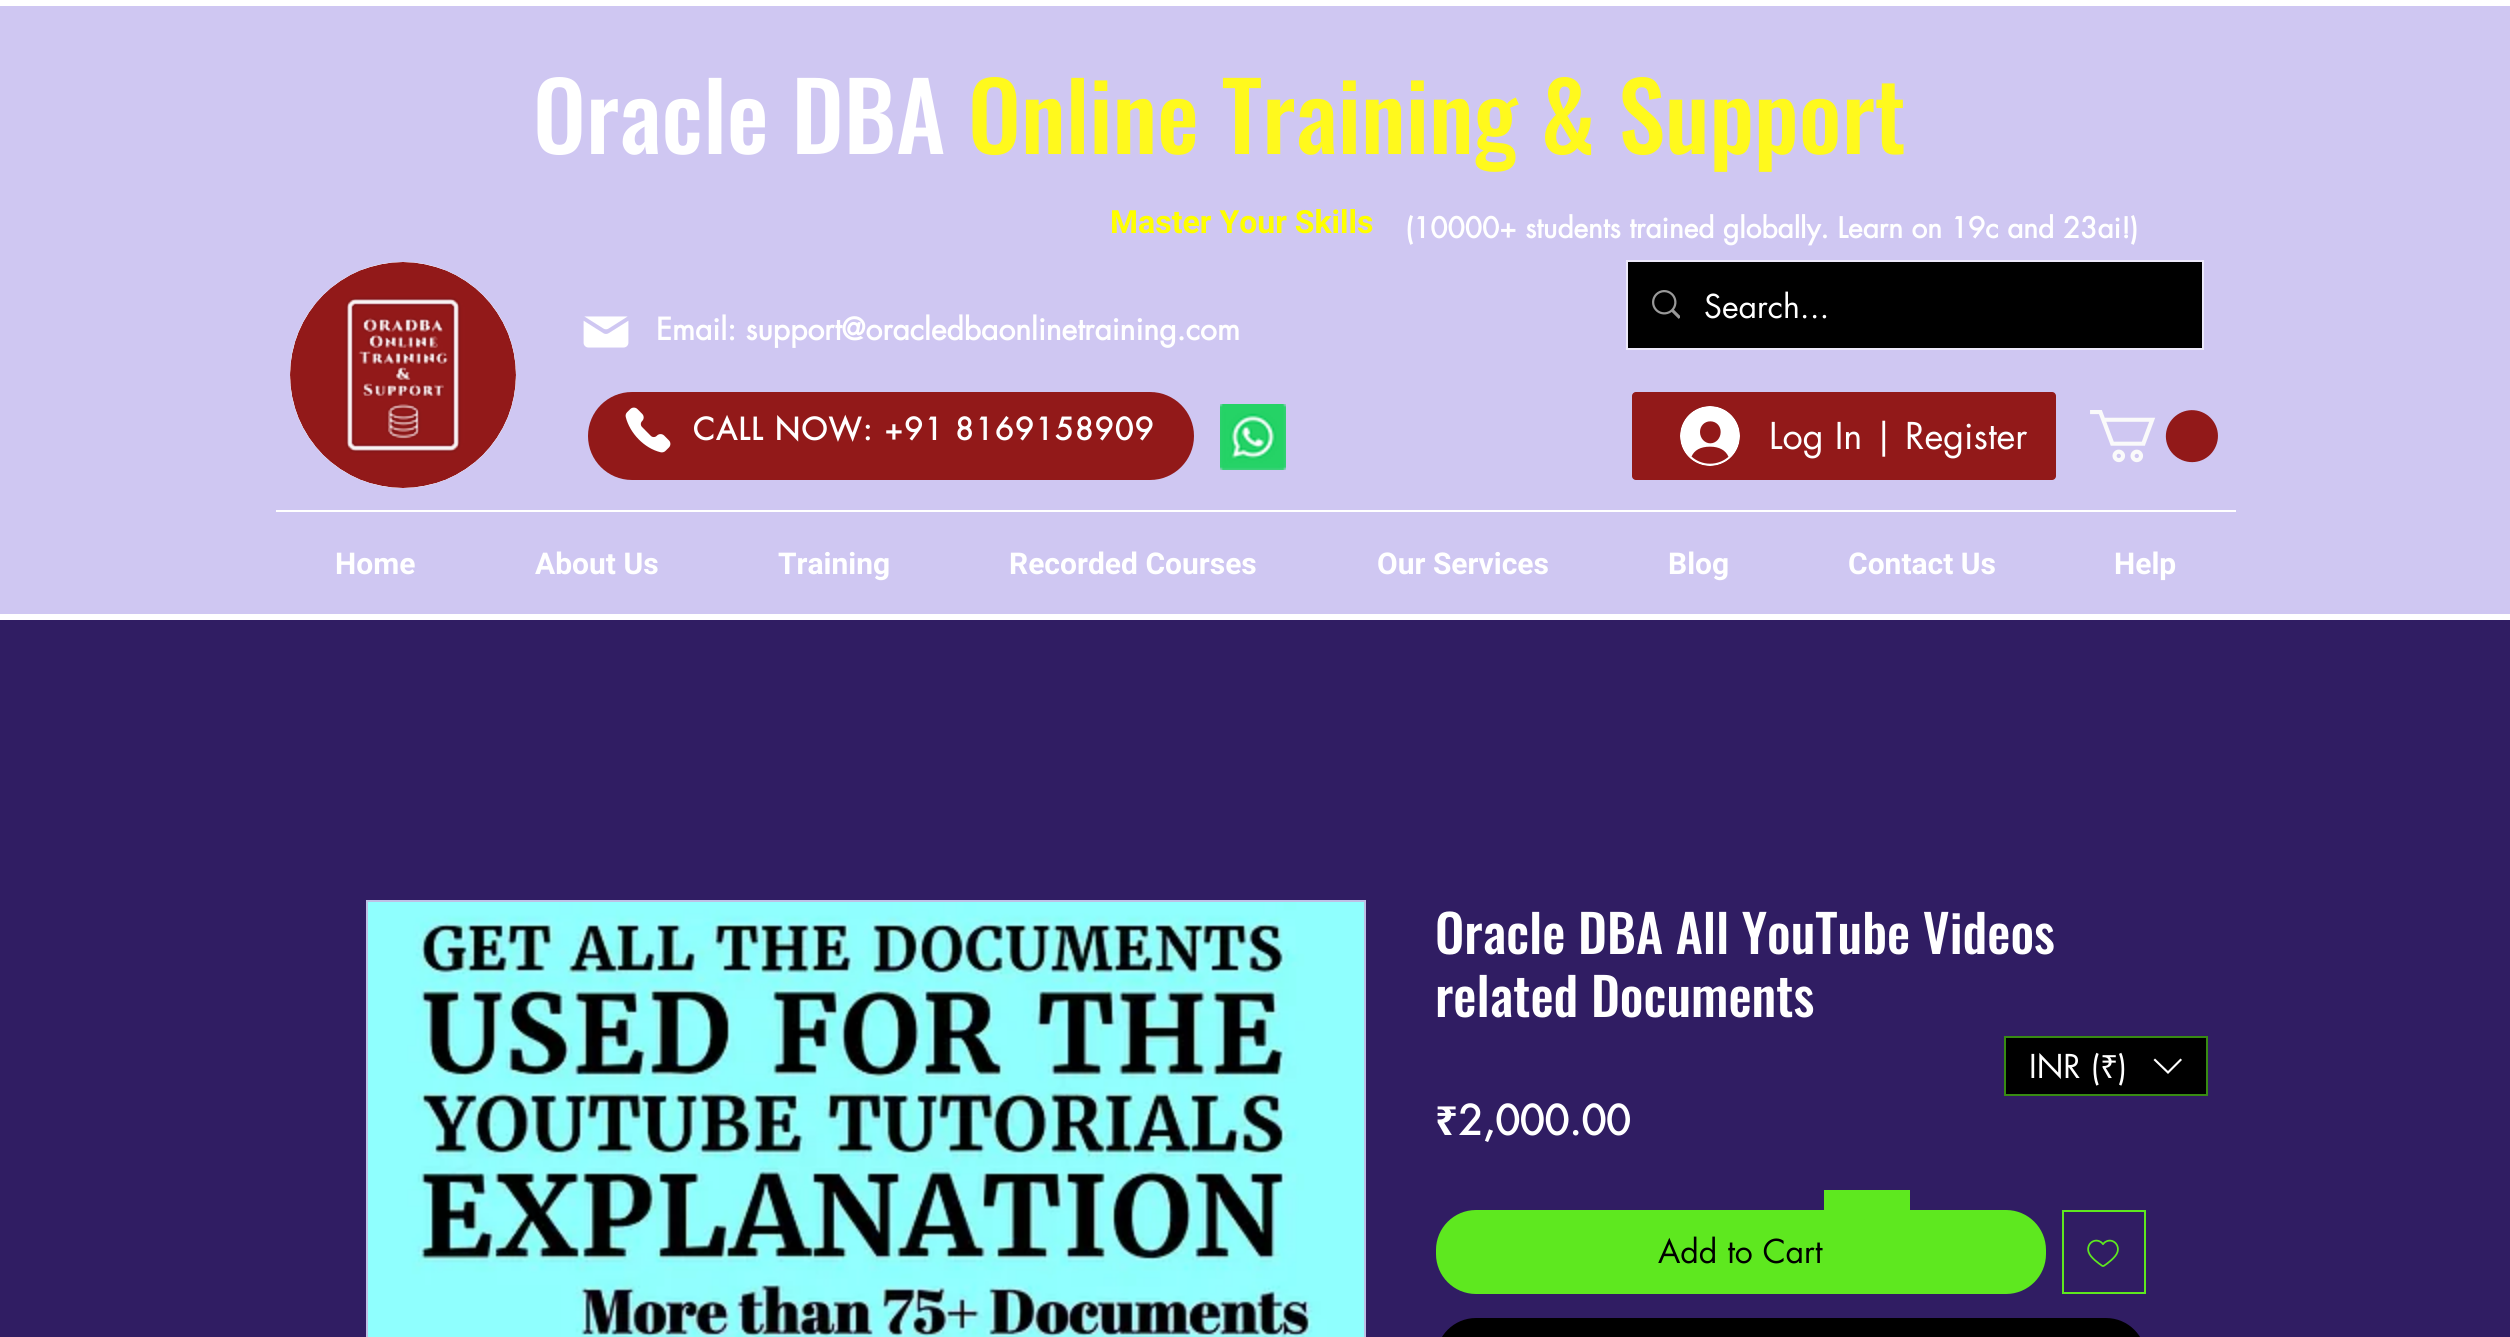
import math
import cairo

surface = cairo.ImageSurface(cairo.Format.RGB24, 2510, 1337)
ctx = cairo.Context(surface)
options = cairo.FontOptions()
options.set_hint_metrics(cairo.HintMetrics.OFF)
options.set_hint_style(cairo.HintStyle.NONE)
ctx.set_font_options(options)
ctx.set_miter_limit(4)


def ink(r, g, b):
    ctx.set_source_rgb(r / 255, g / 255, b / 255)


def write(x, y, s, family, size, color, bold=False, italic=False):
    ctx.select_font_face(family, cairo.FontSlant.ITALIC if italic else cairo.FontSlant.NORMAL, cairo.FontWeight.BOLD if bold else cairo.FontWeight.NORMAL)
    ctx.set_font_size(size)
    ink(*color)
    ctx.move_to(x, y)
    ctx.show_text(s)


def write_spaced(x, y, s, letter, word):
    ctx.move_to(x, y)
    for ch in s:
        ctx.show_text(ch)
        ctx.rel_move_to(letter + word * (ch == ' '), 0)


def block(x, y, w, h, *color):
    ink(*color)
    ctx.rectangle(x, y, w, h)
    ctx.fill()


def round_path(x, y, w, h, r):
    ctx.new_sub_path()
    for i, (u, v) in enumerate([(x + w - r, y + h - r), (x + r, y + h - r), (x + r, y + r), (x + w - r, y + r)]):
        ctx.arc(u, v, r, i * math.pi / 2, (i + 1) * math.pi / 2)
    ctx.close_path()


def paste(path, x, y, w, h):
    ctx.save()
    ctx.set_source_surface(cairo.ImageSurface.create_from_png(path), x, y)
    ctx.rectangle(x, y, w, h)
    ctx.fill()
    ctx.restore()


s1 = dict(family="Oswald Medium", size=94, color=(255, 255, 255))
s2 = dict(family="Oswald Medium", size=94, color=(255, 249, 29))
s3 = dict(family="Roboto", size=32, color=(255, 255, 0), bold=True)
s4 = dict(family="futura", size=28, color=(255, 255, 255), bold=True)
s5 = dict(family="futura", size=30, color=(255, 255, 255), bold=True)
s6 = dict(family="futura", size=36, color=(255, 255, 255))
s7 = dict(family="Roboto", size=30, color=(255, 255, 255), bold=True)
s8 = dict(family="futura", size=32, color=(255, 255, 255))
s9 = dict(family="Oswald Medium", size=52, color=(255, 255, 255))
s10 = dict(family="Noto Sans", size=40, color=(255, 255, 255), bold=True)
s11 = dict(family="futura", size=40, color=(255, 255, 255), bold=True)
s12 = dict(family="futura", size=32, color=(0, 0, 0))
s13 = dict(family="Noto Sans", size=32, color=(255, 255, 255))

ink(207, 199, 242)
ctx.paint()
block(0, 0, 2510, 6, 255, 255, 255)
block(0, 614, 2510, 6, 255, 255, 255)
write(533, 154, "Oracle DBA", **s1)
write(968, 154, "Online Training & Support", **s2)
write(1110, 233, "Master Your Skills", **s3)
write(1405, 238, "(10000+ students trained globally. Learn on 19c and 23ai!)", **s4)
ctx.new_path()
ctx.arc(403, 375, 113, 0, 2 * math.pi)
ctx.fill()
paste("pic1.png", 290, 262, 226, 226)
paste("pic2.png", 583, 316, 46, 32)
write(656, 340, "Email: support@oracledbaonlinetraining.com", **s5)
ink(146, 25, 25)
round_path(588, 392, 606, 88, 44)
ctx.fill()
paste("pic3.png", 625, 407, 46, 46)
ink(255, 255, 255)
write_spaced(693, 440, "CALL NOW: +91 8169158909", 1.5, 0)
paste("pic4.png", 1220, 404, 66, 66)
ink(146, 25, 25)
round_path(1632, 392, 424, 88, 4)
ctx.fill()
paste("pic5.png", 1680, 406, 60, 60)
write(1769, 449, "Log In | Register", **s6)
paste("pic6.png", 2090, 410, 128, 53)
block(276, 510, 1960, 2, 255, 255, 255)
write(335, 574, "Home", **s7)
write(535, 574, "About Us", **s7)
write(778, 574, "Training", **s7)
write(1009, 574, "Recorded Courses", **s7)
write(1377, 574, "Our Services", **s7)
write(1668, 574, "Blog", **s7)
write(1848, 574, "Contact Us", **s7)
write(2114, 574, "Help", **s7)
ctx.rectangle(1627, 261, 576, 88)
ink(236, 233, 250)
ctx.stroke()
block(1628, 262, 574, 86, 0, 0, 0)
paste("pic7.png", 1652, 290, 28, 29)
write(1704, 318, "Search...", **s8)
block(0, 620, 2510, 717, 48, 29, 99)
ctx.rectangle(367, 901, 998, 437)
ink(190, 192, 230)
ctx.stroke()
paste("pic8.png", 368, 902, 996, 435)
write(1435, 954, "Oracle DBA All YouTube Videos", **s9)
write(1435, 1017, "related Documents", **s9)
write(1435, 1135, "₹", **s10)
write(1458, 1135, "2,000.00", **s11)
ink(94, 232, 31)
round_path(1436, 1210, 610, 84, 40)
ctx.fill()
write(1658, 1263, "Add to Cart", **s12)
ctx.rectangle(2063, 1211, 82, 82)
ink(94, 232, 31)
ctx.stroke()
paste("pic9.png", 2087, 1239, 32, 28)
ink(0, 0, 0)
round_path(1436, 1318, 710, 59, 40)
ctx.fill()
ctx.rectangle(2005, 1037, 202, 58)
ctx.fill_preserve()
ink(56, 139, 19)
ctx.stroke()
write(2029, 1078, "INR (", **s8)
write(2100, 1078, "₹", **s13)
write(2118, 1078, ")", **s8)
ctx.set_fill_rule(cairo.FillRule.EVEN_ODD)
ctx.new_path()
ctx.move_to(2180.5, 1058.5)
ctx.line_to(2182, 1060)
ctx.line_to(2168, 1074)
ctx.line_to(2153.5, 1060)
ctx.line_to(2155, 1058.5)
ctx.line_to(2168, 1071)
ctx.close_path()
ctx.fill()
ink(94, 232, 31)
ctx.set_fill_rule(cairo.FillRule.WINDING)
ctx.new_path()
ctx.move_to(1824, 1190)
ctx.line_to(1824, 1270)
ctx.line_to(1910, 1270)
ctx.line_to(1910, 1190)
ctx.close_path()
ctx.move_to(1877, 1243)
ctx.line_to(1867, 1232)
ctx.line_to(1857, 1243)
ctx.line_to(1844, 1243)
ctx.line_to(1867, 1217)
ctx.line_to(1890, 1243)
ctx.close_path()
ctx.fill()
surface.write_to_png("screenshot.png")
